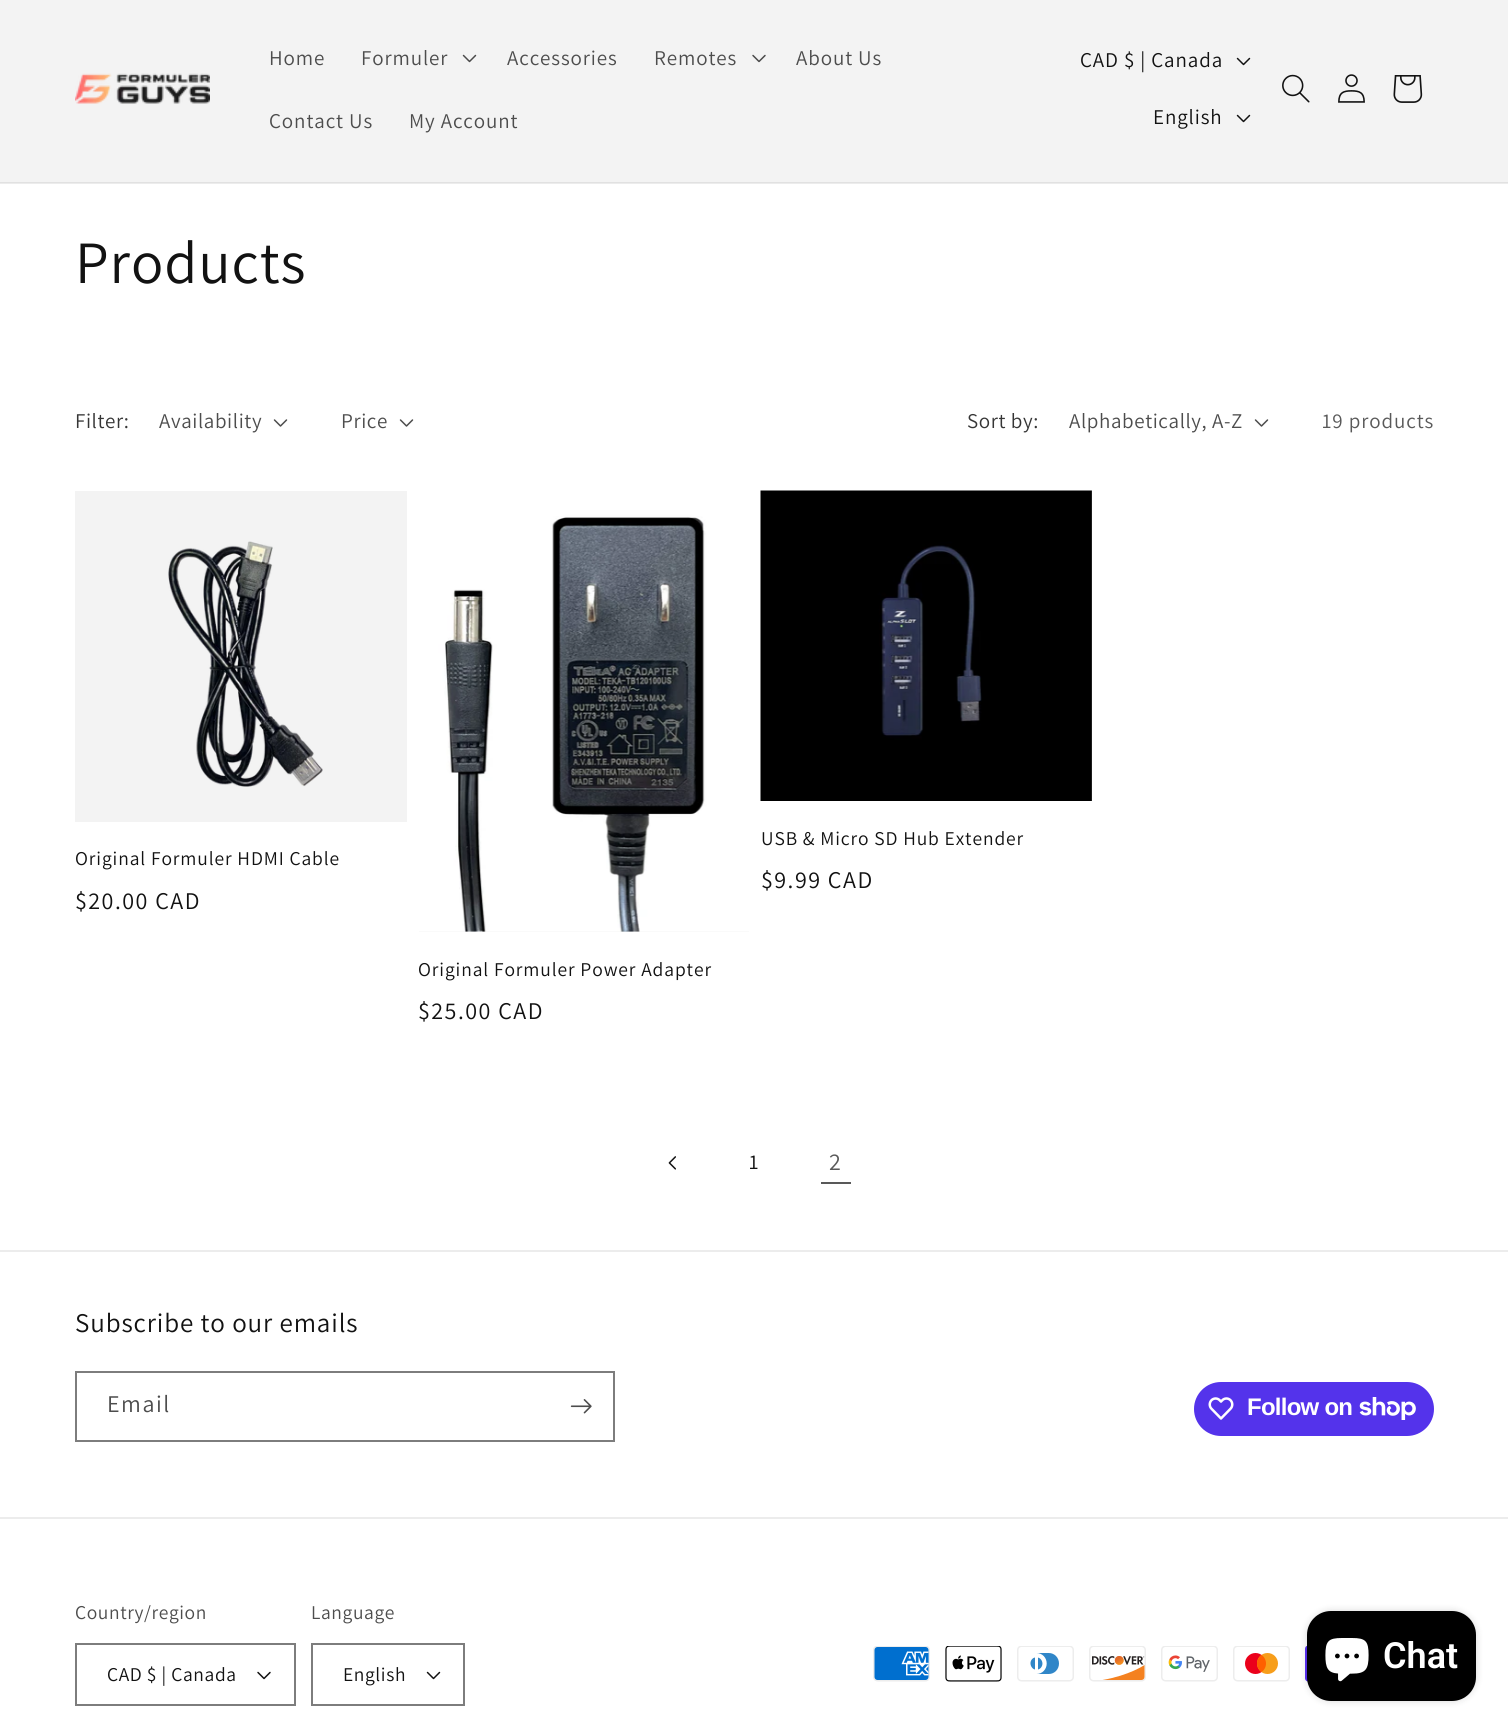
import math
import cairo

surface = cairo.ImageSurface(cairo.Format.RGB24, 1508, 1732)
ctx = cairo.Context(surface)
options = cairo.FontOptions()
options.set_hint_metrics(cairo.HintMetrics.OFF)
options.set_hint_style(cairo.HintStyle.NONE)
ctx.set_font_options(options)
ctx.set_miter_limit(4)


def ink(r, g, b):
    ctx.set_source_rgb(r / 255, g / 255, b / 255)


def write(x, y, s, family, size, color, bold=False, italic=False):
    ctx.select_font_face(family, cairo.FontSlant.ITALIC if italic else cairo.FontSlant.NORMAL, cairo.FontWeight.BOLD if bold else cairo.FontWeight.NORMAL)
    ctx.set_font_size(size)
    ink(*color)
    ctx.move_to(x, y)
    ctx.show_text(s)


def write_spaced(x, y, s, letter, word):
    ctx.move_to(x, y)
    for ch in s:
        ctx.show_text(ch)
        ctx.rel_move_to(letter + word * (ch == ' '), 0)


def block(x, y, w, h, *color):
    ink(*color)
    ctx.rectangle(x, y, w, h)
    ctx.fill()


def round_path(x, y, w, h, r):
    ctx.new_sub_path()
    for i, (u, v) in enumerate([(x + w - r, y + h - r), (x + r, y + h - r), (x + r, y + r), (x + w - r, y + r)]):
        ctx.arc(u, v, r, i * math.pi / 2, (i + 1) * math.pi / 2)
    ctx.close_path()


def blur_box(x, y, w, h, r, blur, alpha):
    ctx.push_group_with_content(cairo.Content.ALPHA)
    ctx.set_operator(cairo.Operator.SOURCE)
    for i in range(15, -16, -2):
        e = blur * i / 6
        if min(w, h) + 2 * e > 0:
            ctx.set_source_rgba(0, 0, 0, alpha * math.erfc((i - 1) / 8.5) / 2)
            round_path(x - e, y - e, w + 2 * e, h + 2 * e, max(0, min(r + e + blur * .6, min(w, h) / 2 + e)))
            ctx.fill()
    ctx.mask(ctx.pop_group())


def paste(path, x, y, w, h):
    ctx.save()
    ctx.set_source_surface(cairo.ImageSurface.create_from_png(path), x, y)
    ctx.rectangle(x, y, w, h)
    ctx.fill()
    ctx.restore()


s1 = dict(family="Roboto SemiBold", size=36, color=(255, 255, 255))

ink(255, 255, 255)
ctx.paint()
block(0, 183, 1508, 1, 236, 236, 236)
block(0, 0, 1508, 182, 243, 243, 243)
block(0, 182, 1508, 1, 225, 225, 225)
paste("pic1.png", 75, 73, 135, 31)
ctx.select_font_face("Assistant")
ctx.set_font_size(21)
ink(77, 77, 77)
write_spaced(269, 65, "Home", 0.9, 0)
write_spaced(361, 65, "Formuler", 0.9, 0)
paste("pic2.png", 462, 54, 15, 9)
write_spaced(507, 65, "Accessories", 0.9, 0)
write_spaced(654, 65, "Remotes", 0.9, 0)
paste("pic3.png", 752, 54, 14, 9)
write_spaced(796, 65, "About Us", 0.9, 0)
write_spaced(269, 128, "Contact Us", 0.9, 0)
write_spaced(409, 128, "My Account", 0.9, 0)
ink(18, 18, 18)
write_spaced(1080, 67, "CAD $ | Canada", 0.9, 0)
paste("pic4.png", 1236, 57, 15, 9)
write_spaced(1153, 124, "English", 0.9, 0)
paste("pic4.png", 1236, 114, 15, 9)
paste("pic5.png", 1282, 74, 28, 29)
paste("pic6.png", 1338, 74, 27, 29)
paste("pic7.png", 1393, 75, 30, 28)
ctx.set_font_size(60)
write_spaced(75, 283, "Products", 0.9, 0)
ctx.set_font_size(21)
ink(54, 54, 54)
write_spaced(75, 428, "Filter:", 0.6, 0)
ink(77, 77, 77)
write_spaced(159, 428, "Availability", 0.6, 0)
paste("pic8.png", 273, 419, 15, 8)
write_spaced(341, 428, "Price", 0.6, 0)
paste("pic8.png", 399, 419, 15, 8)
ink(54, 54, 54)
write_spaced(967, 428, "Sort by:", 0.6, 0)
ink(77, 77, 77)
write_spaced(1069, 428, "Alphabetically, A-Z", 0.6, 0)
paste("pic8.png", 1254, 419, 15, 8)
ink(89, 89, 89)
write_spaced(1322, 428, "19 products", 0.9, 0)
block(75, 491, 332, 331, 243, 243, 243)
paste("pic9.png", 168, 541, 155, 246)
ctx.set_font_size(19.5)
ink(18, 18, 18)
write_spaced(75, 865, "Original Formuler HDMI Cable", 0.9, 0)
ctx.set_font_size(24)
write_spaced(75, 909, "$20.00 CAD", 1.5, 0)
paste("pic10.png", 760, 490, 332, 311)
ctx.set_font_size(19.5)
write_spaced(761, 845, "USB & Micro SD Hub Extender", 0.9, 0)
ctx.set_font_size(24)
write_spaced(761, 888, "$9.99 CAD", 1.5, 0)
block(419, 931, 330, 1, 243, 243, 243)
paste("pic11.png", 419, 491, 330, 441)
ctx.set_font_size(19.5)
ink(18, 18, 18)
write_spaced(418, 976, "Original Formuler Power Adapter", 0.9, 0)
ctx.set_font_size(24)
write_spaced(418, 1019, "$25.00 CAD", 1.5, 0)
paste("pic12.png", 668, 1156, 8, 14)
ctx.set_font_size(21)
write_spaced(749, 1169, "1", 0.9, 0)
ctx.set_font_size(24)
ink(89, 89, 89)
write_spaced(829, 1170, "2", 0.9, 0)
block(821, 1182, 30, 2, 89, 89, 89)
block(0, 1250, 1508, 2, 236, 236, 236)
ctx.set_font_size(27)
ink(18, 18, 18)
write_spaced(75, 1332, "Subscribe to our emails", 0.9, 0)
ctx.rectangle(76, 1372, 538, 69)
ink(125, 125, 125)
ctx.stroke()
ctx.set_font_size(24)
ink(77, 77, 77)
write_spaced(107, 1412, "Email", 1.5, 0)
paste("pic13.png", 570, 1399, 22, 15)
ink(84, 51, 235)
round_path(1194, 1382, 240, 54, 27)
ctx.fill()
paste("pic14.png", 1208, 1397, 26, 23)
ctx.select_font_face("Liberation Sans", cairo.FontSlant.NORMAL, cairo.FontWeight.BOLD)
ink(255, 255, 255)
write_spaced(1247, 1415, "Follow on", -0.75, 0)
paste("pic15.png", 1359, 1397, 57, 23)
block(0, 1517, 1508, 2, 236, 236, 236)
ctx.select_font_face("Assistant")
ctx.set_font_size(19.5)
ink(77, 77, 77)
write_spaced(75, 1619, "Country/region", 0.6, 0)
paste("pic16.png", 257, 1671, 14, 9)
ctx.rectangle(76, 1644, 219, 61)
ink(125, 125, 125)
ctx.stroke()
ink(18, 18, 18)
write_spaced(107, 1681, "CAD $ | Canada", 0.6, 0)
ink(77, 77, 77)
write_spaced(311, 1619, "Language", 0.6, 0)
paste("pic17.png", 426, 1671, 15, 9)
ctx.rectangle(312, 1644, 152, 61)
ink(125, 125, 125)
ctx.stroke()
ink(18, 18, 18)
write_spaced(343, 1681, "English", 0.6, 0)
paste("pic18.png", 873, 1646, 57, 36)
paste("pic19.png", 945, 1646, 57, 36)
paste("pic20.png", 1017, 1646, 57, 36)
paste("pic21.png", 1089, 1646, 57, 36)
paste("pic22.png", 1161, 1646, 57, 36)
paste("pic23.png", 1233, 1646, 57, 36)
paste("pic24.png", 1305, 1646, 3, 36)
ink(0, 0, 0)
blur_box(1307, 1611, 169, 90, 24, 4, 0.15)
ink(0, 0, 0)
round_path(1307, 1611, 169, 90, 24)
ctx.fill()
paste("pic25.png", 1325, 1638, 44, 44)
write(1383, 1668, "Chat", **s1)
surface.write_to_png("screenshot.png")
